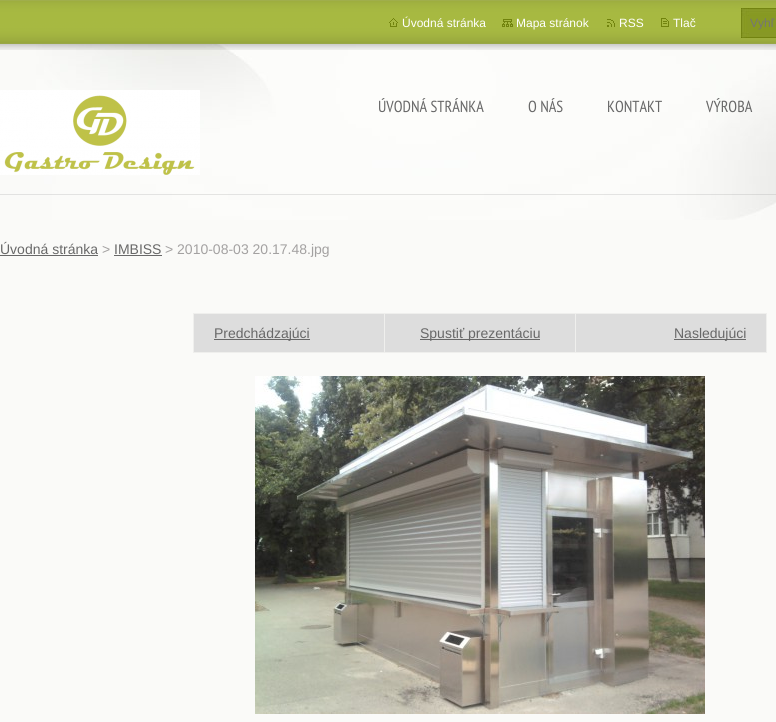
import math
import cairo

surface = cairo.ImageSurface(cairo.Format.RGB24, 776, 722)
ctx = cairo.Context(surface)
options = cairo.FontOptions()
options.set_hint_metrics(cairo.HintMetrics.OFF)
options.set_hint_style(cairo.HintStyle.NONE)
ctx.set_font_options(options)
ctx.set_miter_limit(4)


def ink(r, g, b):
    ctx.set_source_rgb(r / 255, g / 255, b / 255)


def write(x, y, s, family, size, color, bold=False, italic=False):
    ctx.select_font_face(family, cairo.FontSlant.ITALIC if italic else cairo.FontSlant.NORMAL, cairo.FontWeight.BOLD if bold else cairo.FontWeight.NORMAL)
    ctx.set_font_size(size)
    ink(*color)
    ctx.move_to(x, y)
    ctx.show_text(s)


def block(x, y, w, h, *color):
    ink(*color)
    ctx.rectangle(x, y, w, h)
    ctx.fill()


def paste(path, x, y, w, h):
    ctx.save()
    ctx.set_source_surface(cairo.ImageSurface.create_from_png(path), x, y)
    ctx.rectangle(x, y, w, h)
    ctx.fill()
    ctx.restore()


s1 = dict(family="Liberation Sans", size=12, color=(255, 255, 255))
s2 = dict(family="Liberation Sans", size=12, color=(117, 117, 117))
s3 = dict(family="PT Sans Narrow", size=16, color=(104, 104, 104))
s4 = dict(family="Liberation Sans", size=14, color=(104, 104, 104))
s5 = dict(family="Liberation Sans", size=14, color=(163, 161, 161))

ink(250, 250, 248)
ctx.paint()
paste("pic1.png", 36, 44, 740, 176)
ctx.set_source_rgba(0.62, 0.62, 0.62, 0.26)
ctx.rectangle(0, 194, 776, 1)
ctx.fill()
paste("pic2.png", 0, 0, 776, 50)
paste("pic3.png", 389, 18, 9, 9)
write(402, 27, "Úvodná stránka", **s1)
paste("pic4.png", 502, 19, 11, 8)
write(516, 27, "Mapa stránok", **s1)
paste("pic5.png", 607, 19, 8, 8)
write(619, 27, "RSS", **s1)
paste("pic6.png", 661, 18, 8, 9)
write(673, 27, "Tlač", **s1)
paste("pic7.png", 741, 8, 35, 30)
write(750, 27, "Vyhľ", **s2)
paste("pic8.png", 0, 90, 200, 85)
write(378, 112, "ÚVODNÁ STRÁNKA", **s3)
write(528, 112, "O NÁS", **s3)
write(607, 112, "KONTAKT", **s3)
write(706, 112, "VÝROBA", **s3)
write(0, 254, "Úvodná stránka", **s4)
block(0, 255, 98, 1, 104, 104, 104)
write(102, 254, ">", **s5)
write(114, 254, "IMBISS", **s4)
block(114, 255, 48, 1, 104, 104, 104)
write(165, 254, "> 2010-08-03 20.17.48.jpg", **s5)
block(193, 313, 574, 1, 239, 239, 237)
block(193, 313, 1, 40, 239, 239, 237)
block(194, 314, 190, 38, 221, 221, 221)
block(766, 313, 1, 40, 239, 239, 237)
block(575, 352, 192, 1, 239, 239, 237)
block(575, 313, 1, 40, 239, 239, 237)
block(384, 352, 192, 1, 239, 239, 237)
block(384, 313, 1, 40, 239, 239, 237)
block(193, 352, 192, 1, 239, 239, 237)
block(214, 339, 96, 1, 104, 104, 104)
write(214, 338, "Predchádzajúci", **s4)
block(385, 314, 190, 38, 221, 221, 221)
block(420, 339, 120, 1, 104, 104, 104)
write(420, 338, "Spustiť prezentáciu", **s4)
block(576, 314, 190, 38, 221, 221, 221)
block(674, 339, 72, 1, 104, 104, 104)
write(674, 338, "Nasledujúci", **s4)
paste("pic9.png", 255, 376, 450, 338)
surface.write_to_png("screenshot.png")
